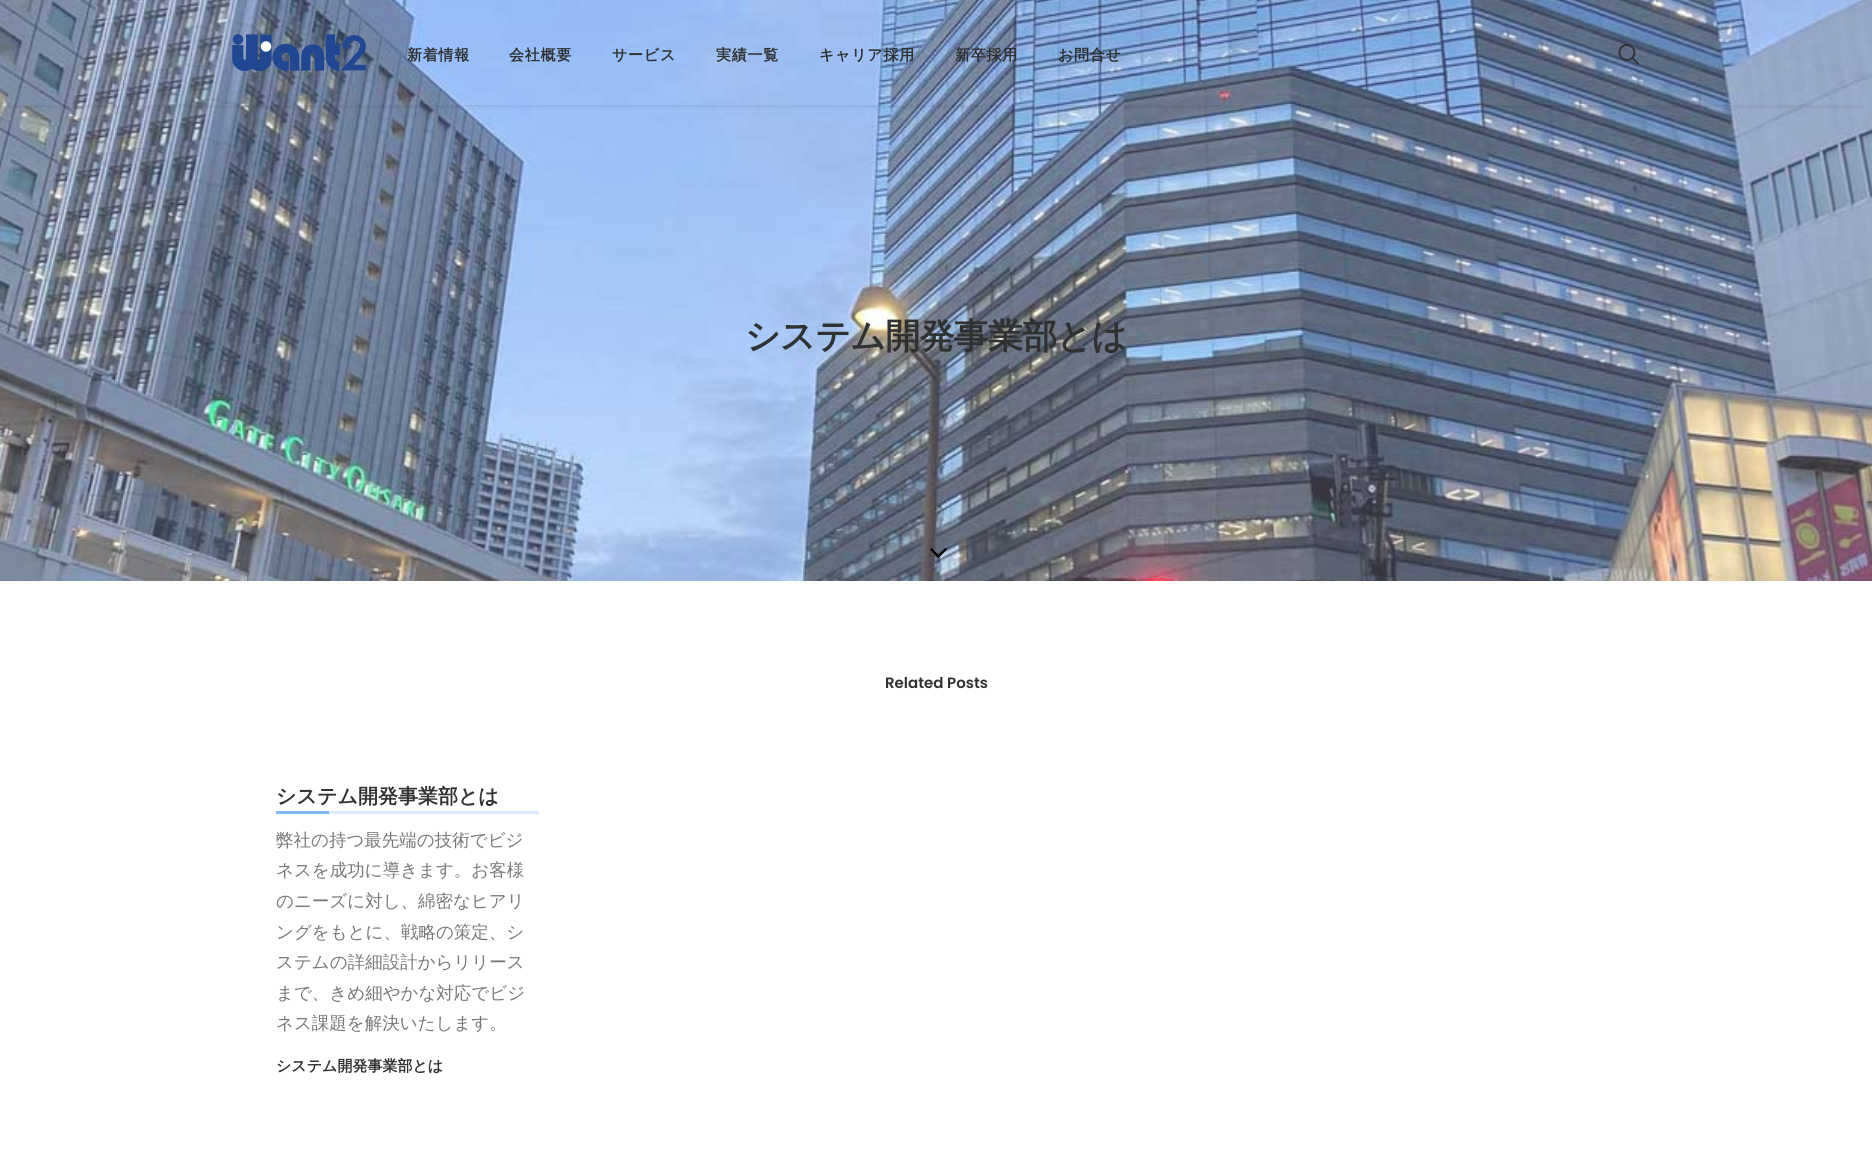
import math
import cairo

surface = cairo.ImageSurface(cairo.Format.RGB24, 1872, 1162)
ctx = cairo.Context(surface)
options = cairo.FontOptions()
options.set_hint_metrics(cairo.HintMetrics.OFF)
options.set_hint_style(cairo.HintStyle.NONE)
ctx.set_font_options(options)
ctx.set_miter_limit(4)


def ink(r, g, b):
    ctx.set_source_rgb(r / 255, g / 255, b / 255)


def write(x, y, s, family, size, color, bold=False, italic=False):
    ctx.select_font_face(family, cairo.FontSlant.ITALIC if italic else cairo.FontSlant.NORMAL, cairo.FontWeight.BOLD if bold else cairo.FontWeight.NORMAL)
    ctx.set_font_size(size)
    ink(*color)
    ctx.move_to(x, y)
    ctx.show_text(s)


def write_spaced(x, y, s, letter, word):
    ctx.move_to(x, y)
    for ch in s:
        ctx.show_text(ch)
        ctx.rel_move_to(letter + word * (ch == ' '), 0)


def block(x, y, w, h, *color):
    ink(*color)
    ctx.rectangle(x, y, w, h)
    ctx.fill()


def round_path(x, y, w, h, r):
    ctx.new_sub_path()
    for i, (u, v) in enumerate([(x + w - r, y + h - r), (x + r, y + h - r), (x + r, y + r), (x + w - r, y + r)]):
        ctx.arc(u, v, r, i * math.pi / 2, (i + 1) * math.pi / 2)
    ctx.close_path()


def blur_box(x, y, w, h, r, blur, alpha):
    ctx.push_group_with_content(cairo.Content.ALPHA)
    ctx.set_operator(cairo.Operator.SOURCE)
    for i in range(15, -16, -2):
        e = blur * i / 6
        if min(w, h) + 2 * e > 0:
            ctx.set_source_rgba(0, 0, 0, alpha * math.erfc((i - 1) / 8.5) / 2)
            round_path(x - e, y - e, w + 2 * e, h + 2 * e, max(0, min(r + e + blur * .6, min(w, h) / 2 + e)))
            ctx.fill()
    ctx.mask(ctx.pop_group())


def paste(path, x, y, w, h):
    ctx.save()
    ctx.set_source_surface(cairo.ImageSurface.create_from_png(path), x, y)
    ctx.rectangle(x, y, w, h)
    ctx.fill()
    ctx.restore()


s1 = dict(family="Poppins SemiBold", size=15, color=(48, 49, 51))
s2 = dict(family="WenQuanYi Zen Hei", size=20, color=(48, 49, 51), bold=True)
s3 = dict(family="WenQuanYi Zen Hei Medium", size=17.5, color=(119, 119, 119))
s4 = dict(family="WenQuanYi Zen Hei", size=15, color=(48, 49, 51), bold=True)

ink(255, 255, 255)
ctx.paint()
paste("pic3.png", 0, 0, 1872, 581)
ctx.save()
ctx.rectangle(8, 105, 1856, 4)
ctx.clip()
ink(0, 0, 0)
blur_box(11, 18, 1850, 80, 0, 6, 0.6)
ctx.restore()
paste("pic1.png", 232, 34, 134, 37)
ctx.select_font_face("WenQuanYi Zen Hei", cairo.FontSlant.NORMAL, cairo.FontWeight.BOLD)
ctx.set_font_size(15)
ink(48, 49, 51)
write_spaced(407, 60, "新着情報", 0.75, 0)
write_spaced(509, 60, "会社概要", 0.75, 0)
write_spaced(612, 60, "サービス", 0.75, 0)
write_spaced(716, 60, "実績一覧", 0.75, 0)
write_spaced(819, 60, "キャリア採用", 0.75, 0)
write_spaced(955, 60, "新卒採用", 0.75, 0)
write_spaced(1058, 60, "お問合せ", 0.75, 0)
paste("pic2.png", 1618, 44, 21, 21)
ctx.set_font_size(35)
write_spaced(745, 348, "システム開発事業部とは", -0.75, 0)
paste("pic4.png", 930, 548, 17, 10)
write(885, 688, "Related Posts", **s1)
block(329, 811, 210, 3, 218, 235, 255)
write(276, 803, "システム開発事業部とは", **s2)
block(276, 811, 53, 3, 129, 187, 254)
write(276, 846, "弊社の持つ最先端の技術でビジ", **s3)
write(276, 876, "ネスを成功に導きます。お客様", **s3)
write(276, 907, "のニーズに対し、綿密なヒアリ", **s3)
write(276, 938, "ングをもとに、戦略の策定、シ", **s3)
write(276, 968, "ステムの詳細設計からリリース", **s3)
write(276, 999, "まで、きめ細やかな対応でビジ", **s3)
write(276, 1029, "ネス課題を解決いたします。", **s3)
write(276, 1071, "システム開発事業部とは", **s4)
surface.write_to_png("screenshot.png")
